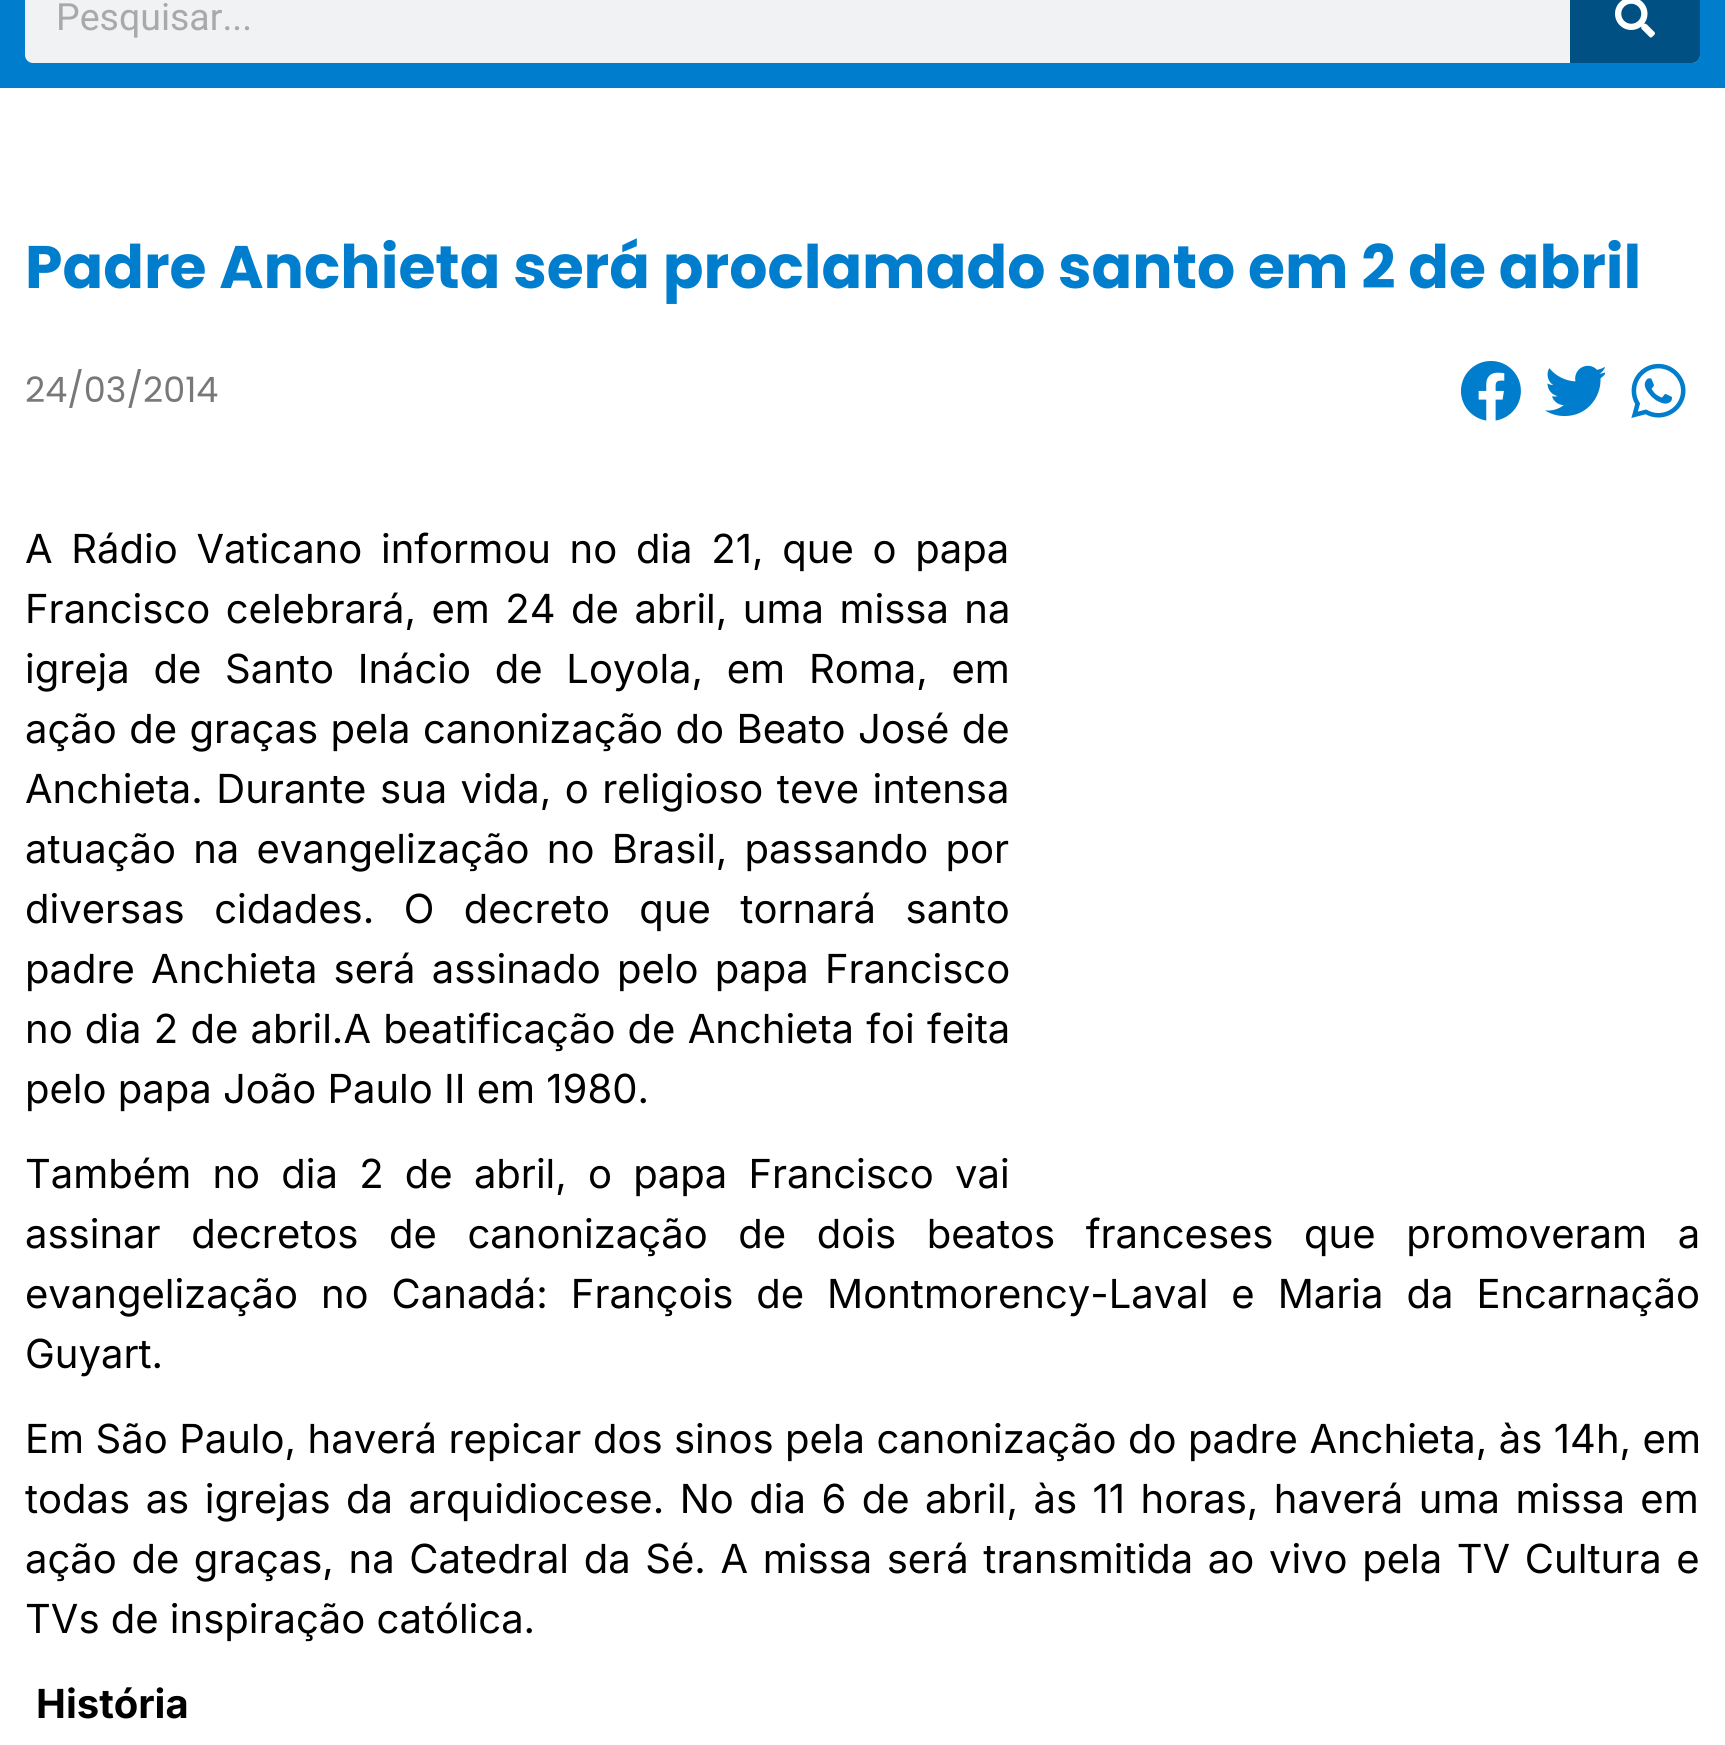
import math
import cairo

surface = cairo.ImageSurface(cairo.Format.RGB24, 1725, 1745)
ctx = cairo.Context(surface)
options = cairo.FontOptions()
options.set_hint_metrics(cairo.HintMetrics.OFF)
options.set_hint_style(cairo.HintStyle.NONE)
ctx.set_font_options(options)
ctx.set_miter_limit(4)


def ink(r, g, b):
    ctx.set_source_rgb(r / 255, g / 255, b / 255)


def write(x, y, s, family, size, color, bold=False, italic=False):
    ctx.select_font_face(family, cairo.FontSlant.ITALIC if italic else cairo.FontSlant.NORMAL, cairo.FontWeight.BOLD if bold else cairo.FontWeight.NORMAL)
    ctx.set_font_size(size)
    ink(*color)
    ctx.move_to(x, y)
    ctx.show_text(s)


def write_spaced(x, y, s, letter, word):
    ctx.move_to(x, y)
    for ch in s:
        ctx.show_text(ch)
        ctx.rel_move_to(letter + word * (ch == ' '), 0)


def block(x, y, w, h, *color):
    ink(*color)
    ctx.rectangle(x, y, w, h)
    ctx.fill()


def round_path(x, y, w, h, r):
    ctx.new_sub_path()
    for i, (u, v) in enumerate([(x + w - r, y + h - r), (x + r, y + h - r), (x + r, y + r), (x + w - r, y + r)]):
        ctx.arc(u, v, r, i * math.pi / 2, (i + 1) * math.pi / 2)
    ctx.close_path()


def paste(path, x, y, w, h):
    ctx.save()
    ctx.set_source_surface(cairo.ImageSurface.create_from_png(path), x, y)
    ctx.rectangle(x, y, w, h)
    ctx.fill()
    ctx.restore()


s1 = dict(family="Roboto", size=37.5, color=(168, 169, 169))
s2 = dict(family="Poppins", size=60, color=(0, 125, 204), bold=True)
s3 = dict(family="Poppins", size=35, color=(120, 120, 120))
s4 = dict(family="Inter", size=40, color=(0, 0, 0))
s5 = dict(family="Inter", size=40, color=(0, 0, 0), bold=True)

ink(0, 125, 204)
ctx.paint()
ink(241, 242, 243)
round_path(25, -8, 1675, 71, 8)
ctx.fill()
write(56, 30, "Pesquisar...", **s1)
ink(0, 80, 131)
ctx.new_path()
ctx.move_to(1570, -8)
ctx.line_to(1692, -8)
ctx.curve_to(1696.5, -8, 1700, -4.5, 1700, 0)
ctx.line_to(1700, 55)
ctx.curve_to(1700, 59.5, 1696.5, 63, 1692, 63)
ctx.line_to(1570, 63)
ctx.close_path()
ctx.fill()
paste("pic1.png", 1615, 0, 40, 38)
block(0, 88, 1725, 1657, 255, 255, 255)
write(25, 288, "Padre Anchieta será proclamado santo em 2 de abril", **s2)
write(25, 402, "24/03/2014", **s3)
paste("pic2.png", 1461, 361, 60, 60)
paste("pic3.png", 1545, 365, 60, 52)
paste("pic4.png", 1631, 363, 55, 55)
ctx.select_font_face("Inter")
ctx.set_font_size(40)
ink(0, 0, 0)
write_spaced(25, 563, "A Rádio Vaticano informou no dia 21, que o papa", 0, 7.5)
write_spaced(25, 623, "Francisco celebrará, em 24 de abril, uma missa na", 0, 4.25)
write_spaced(25, 683, "igreja de Santo Inácio de Loyola, em Roma, em", 0, 12.5)
write_spaced(25, 743, "ação de graças pela canonização do Beato José de", 0, 1.25)
write_spaced(25, 803, "Anchieta. Durante sua vida, o religioso teve intensa", 0, 2.25)
write_spaced(25, 863, "atuação na evangelização no Brasil, passando por", 0, 6)
write_spaced(25, 923, "diversas cidades. O decreto que tornará santo", 0, 18.25)
write_spaced(25, 983, "padre Anchieta será assinado pelo papa Francisco", 0, 5)
write_spaced(25, 1043, "no dia 2 de abril.A beatificação de Anchieta foi feita", 0, 1)
write(25, 1103, "pelo papa João Paulo II em 1980.", **s4)
write_spaced(25, 1188, "Também no dia 2 de abril, o papa Francisco vai", 0, 10)
write_spaced(25, 1248, "assinar decretos de canonização de dois beatos franceses que promoveram a", 0, 19.4)
write_spaced(25, 1308, "evangelização no Canadá: François de Montmorency-Laval e Maria da Encarnação", 0, 11.75)
write(25, 1368, "Guyart.", **s4)
write_spaced(25, 1453, "Em São Paulo, haverá repicar dos sinos pela canonização do padre Anchieta, às 14h, em", 0, 0.25)
write_spaced(25, 1513, "todas as igrejas da arquidiocese. No dia 6 de abril, às 11 horas, haverá uma missa em", 0, 4.25)
write_spaced(25, 1573, "ação de graças, na Catedral da Sé. A missa será transmitida ao vivo pela TV Cultura e", 0, 3.4)
write(25, 1633, "TVs de inspiração católica.", **s4)
write(36, 1718, "História", **s5)
surface.write_to_png("screenshot.png")
